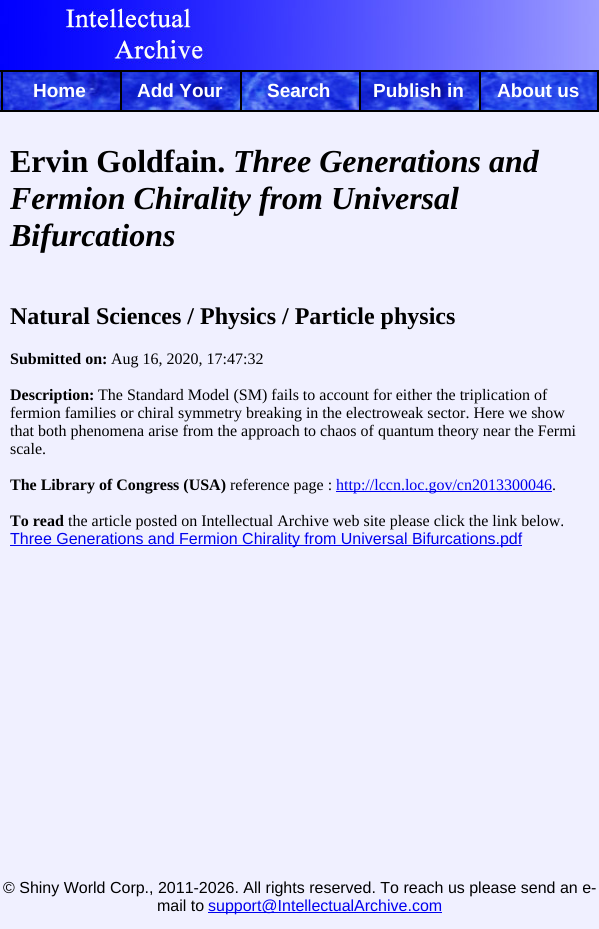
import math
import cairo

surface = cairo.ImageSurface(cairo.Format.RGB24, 599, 929)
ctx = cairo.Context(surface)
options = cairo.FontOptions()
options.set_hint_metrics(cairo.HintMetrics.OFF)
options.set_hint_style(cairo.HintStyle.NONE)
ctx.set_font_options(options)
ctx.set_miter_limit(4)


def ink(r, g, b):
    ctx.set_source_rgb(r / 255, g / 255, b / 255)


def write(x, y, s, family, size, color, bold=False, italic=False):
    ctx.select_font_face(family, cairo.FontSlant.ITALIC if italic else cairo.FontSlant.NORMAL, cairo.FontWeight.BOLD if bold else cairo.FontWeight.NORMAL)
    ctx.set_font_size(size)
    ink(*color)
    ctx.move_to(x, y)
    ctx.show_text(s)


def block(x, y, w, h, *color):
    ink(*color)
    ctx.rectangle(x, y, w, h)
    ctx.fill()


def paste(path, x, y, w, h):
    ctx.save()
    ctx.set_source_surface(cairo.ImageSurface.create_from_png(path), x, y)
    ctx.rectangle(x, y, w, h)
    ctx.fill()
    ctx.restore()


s1 = dict(family="Liberation Sans", size=19, color=(255, 255, 255), bold=True)
s2 = dict(family="Liberation Serif", size=32, color=(0, 0, 0), bold=True)
s3 = dict(family="Liberation Serif", size=32, color=(0, 0, 0), bold=True, italic=True)
s4 = dict(family="Liberation Serif", size=24, color=(0, 0, 0), bold=True)
s5 = dict(family="Liberation Serif", size=16, color=(0, 0, 0), bold=True)
s6 = dict(family="Liberation Serif", size=16, color=(0, 0, 0))
s7 = dict(family="Liberation Serif", size=16, color=(0, 0, 238))
s8 = dict(family="Liberation Sans", size=16, color=(0, 0, 238))
s9 = dict(family="Liberation Sans", size=16, color=(0, 0, 0))

ink(240, 240, 255)
ctx.paint()
paste("pic1.png", 0, 0, 599, 70)
paste("pic2.png", 0, 72, 120, 38)
block(0, 70, 599, 2, 0, 0, 0)
block(0, 110, 599, 2, 0, 0, 0)
block(1, 70, 2, 41, 0, 0, 0)
block(120, 70, 2, 41, 0, 0, 0)
block(240, 70, 2, 41, 0, 0, 0)
block(359, 70, 2, 41, 0, 0, 0)
block(479, 70, 2, 41, 0, 0, 0)
block(597, 70, 2, 41, 0, 0, 0)
write(33, 97, "Home", **s1)
paste("pic3.png", 122, 72, 118, 38)
write(137, 97, "Add Your", **s1)
paste("pic4.png", 242, 72, 117, 38)
write(267, 97, "Search", **s1)
paste("pic3.png", 361, 72, 118, 38)
write(373, 97, "Publish in", **s1)
paste("pic5.png", 481, 72, 116, 38)
write(497, 97, "About us", **s1)
write(10, 172, "Ervin Goldfain.", **s2)
write(233, 172, "Three Generations and", **s3)
write(10, 209, "Fermion Chirality from Universal", **s3)
write(10, 246, "Bifurcations", **s3)
write(10, 324, "Natural Sciences / Physics / Particle physics", **s4)
write(10, 364, "Submitted on:", **s5)
write(111, 364, "Aug 16, 2020, 17:47:32", **s6)
write(10, 400, "Description:", **s5)
write(98, 400, "The Standard Model (SM) fails to account for either the triplication of", **s6)
write(10, 418, "fermion families or chiral symmetry breaking in the electroweak sector. Here we show", **s6)
write(10, 436, "that both phenomena arise from the approach to chaos of quantum theory near the Fermi", **s6)
write(10, 454, "scale.", **s6)
write(10, 490, "The Library of Congress (USA)", **s5)
write(230, 490, "reference page :", **s6)
block(336, 491, 216, 1, 0, 0, 238)
write(336, 490, "http://lccn.loc.gov/cn2013300046", **s7)
write(552, 490, ".", **s6)
write(10, 526, "To read", **s5)
write(68, 526, "the article posted on Intellectual Archive web site please click the link below.", **s6)
block(10, 545, 512, 1, 0, 0, 238)
write(10, 544, "Three Generations and Fermion Chirality from Universal Bifurcations.pdf", **s8)
write(3, 893, "© Shiny World Corp., 2011-2026. All rights reserved. To reach us please send an e-", **s9)
write(157, 911, "mail to", **s9)
block(208, 912, 234, 1, 0, 0, 238)
write(208, 911, "support@IntellectualArchive.com", **s8)
surface.write_to_png("screenshot.png")
